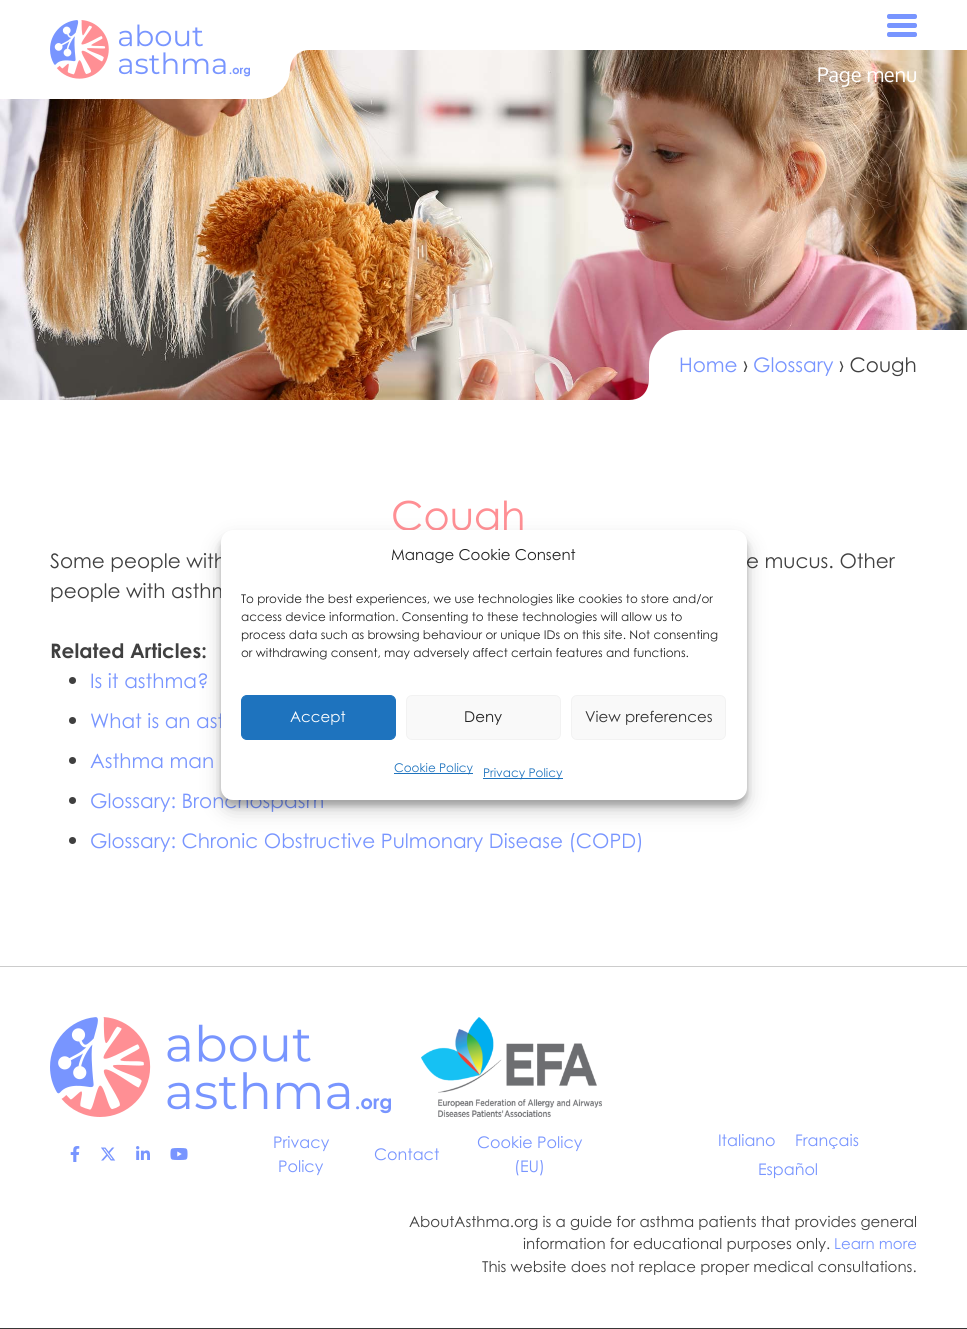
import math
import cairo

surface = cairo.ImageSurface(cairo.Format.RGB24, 967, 1329)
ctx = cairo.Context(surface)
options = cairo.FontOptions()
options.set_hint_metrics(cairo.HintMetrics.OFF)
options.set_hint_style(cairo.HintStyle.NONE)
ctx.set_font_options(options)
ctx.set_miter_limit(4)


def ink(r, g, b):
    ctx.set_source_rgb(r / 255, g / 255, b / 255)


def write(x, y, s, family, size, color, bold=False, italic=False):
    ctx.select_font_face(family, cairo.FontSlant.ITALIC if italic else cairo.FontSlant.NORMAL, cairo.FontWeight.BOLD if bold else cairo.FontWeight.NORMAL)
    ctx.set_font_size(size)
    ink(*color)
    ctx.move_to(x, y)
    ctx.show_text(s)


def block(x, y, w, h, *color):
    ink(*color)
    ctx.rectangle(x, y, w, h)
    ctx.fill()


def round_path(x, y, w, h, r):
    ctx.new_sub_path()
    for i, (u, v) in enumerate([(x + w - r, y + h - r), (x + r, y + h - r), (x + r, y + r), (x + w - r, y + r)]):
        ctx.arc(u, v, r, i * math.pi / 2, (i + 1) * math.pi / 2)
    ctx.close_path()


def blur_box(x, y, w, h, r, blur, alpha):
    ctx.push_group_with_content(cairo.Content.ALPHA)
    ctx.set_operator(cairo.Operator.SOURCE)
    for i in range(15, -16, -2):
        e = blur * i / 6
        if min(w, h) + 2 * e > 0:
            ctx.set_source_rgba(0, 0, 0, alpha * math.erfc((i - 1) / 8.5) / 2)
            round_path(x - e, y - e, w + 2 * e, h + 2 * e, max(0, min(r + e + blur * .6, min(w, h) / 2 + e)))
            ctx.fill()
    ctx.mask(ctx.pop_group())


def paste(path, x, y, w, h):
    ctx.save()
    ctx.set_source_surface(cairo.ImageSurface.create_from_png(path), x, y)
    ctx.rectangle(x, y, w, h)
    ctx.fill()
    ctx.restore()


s1 = dict(family="Oxygen", size=20, color=(255, 255, 255))
s2 = dict(family="Century Gothic", size=20, color=(120, 149, 255))
s3 = dict(family="Century Gothic", size=20, color=(64, 64, 64))
s4 = dict(family="Century Gothic", size=40, color=(255, 143, 148))
s5 = dict(family="Century Gothic", size=20, color=(64, 64, 64), bold=True)
s6 = dict(family="Century Gothic", size=16, color=(120, 149, 255))
s7 = dict(family="Century Gothic", size=15, color=(64, 64, 64))
s8 = dict(family="Century Gothic", size=15, color=(120, 149, 255))
s9 = dict(family="Century Gothic", size=15, color=(34, 34, 34))
s10 = dict(family="Century Gothic", size=12, color=(34, 34, 34))
s11 = dict(family="Century Gothic", size=15, color=(255, 255, 255))
s12 = dict(family="Century Gothic", size=15, color=(51, 51, 51))
s13 = dict(family="Century Gothic", size=12, color=(30, 115, 190))

ink(255, 255, 255)
ctx.paint()
paste("pic2.png", 0, 50, 967, 350)
ink(255, 255, 255)
ctx.new_path()
ctx.move_to(0, 0)
ctx.line_to(290, 0)
ctx.line_to(290, 69)
ctx.curve_to(290, 85.5, 276.5, 99, 260, 99)
ctx.line_to(0, 99)
ctx.close_path()
ctx.fill()
paste("pic1.png", 50, 20, 200, 59)
ctx.new_path()
ctx.move_to(290, 50)
ctx.line_to(290, 70)
ctx.curve_to(290, 70, 290, 50, 310, 50)
ctx.close_path()
ctx.fill()
ink(120, 149, 255)
round_path(887, 14, 30, 5, 2)
ctx.fill()
round_path(887, 23, 30, 5, 2)
ctx.fill()
round_path(887, 32, 30, 5, 2)
ctx.fill()
write(817, 82, "Page menu", **s1)
ctx.new_path()
ctx.move_to(684, 330)
ctx.line_to(967, 330)
ctx.line_to(967, 400)
ctx.line_to(649, 400)
ctx.line_to(649, 365)
ctx.curve_to(649, 345.5, 664.5, 330, 684, 330)
ctx.close_path()
ctx.fill()
write(679, 372, "Home", **s2)
write(743, 372, "›", **s3)
write(753, 372, "Glossary", **s2)
write(839, 372, "› Cough", **s3)
ink(255, 255, 255)
ctx.new_path()
ctx.move_to(649, 400)
ctx.line_to(649, 380)
ctx.curve_to(649, 380, 649, 400, 629, 400)
ctx.close_path()
ctx.fill()
write(391, 530, "Cough", **s4)
write(50, 568, "Some people with", **s3)
write(746, 568, "e mucus. Other", **s3)
write(50, 598, "people with asthm", **s3)
write(50, 658, "Related Articles:", **s5)
ctx.new_path()
ctx.arc(72.5, 680.5, 3.5, 0, 2 * math.pi)
ctx.fill()
write(90, 688, "Is it asthma?", **s2)
ink(64, 64, 64)
ctx.new_path()
ctx.arc(72.5, 720.5, 3.5, 0, 2 * math.pi)
ctx.fill()
write(90, 728, "What is an ast", **s2)
ink(64, 64, 64)
ctx.new_path()
ctx.arc(72.5, 760.5, 3.5, 0, 2 * math.pi)
ctx.fill()
write(90, 768, "Asthma man", **s2)
ink(64, 64, 64)
ctx.new_path()
ctx.arc(72.5, 800.5, 3.5, 0, 2 * math.pi)
ctx.fill()
write(90, 808, "Glossary: Bronchospasm", **s2)
ink(64, 64, 64)
ctx.new_path()
ctx.arc(72.5, 840.5, 3.5, 0, 2 * math.pi)
ctx.fill()
write(90, 848, "Glossary: Chronic Obstructive Pulmonary Disease (COPD)", **s2)
block(0, 966, 967, 1, 204, 204, 204)
paste("pic3.png", 50, 1017, 341, 100)
paste("pic4.png", 421, 1017, 181, 100)
paste("pic5.png", 70, 1146, 10, 16)
paste("pic6.png", 101, 1147, 15, 14)
paste("pic7.png", 136, 1146, 14, 14)
paste("pic8.png", 170, 1148, 18, 12)
write(273, 1148, "Privacy", **s6)
write(278, 1172, "Policy", **s6)
write(374, 1160, "Contact", **s6)
write(477, 1148, "Cookie Policy", **s6)
write(514, 1172, "(EU)", **s6)
write(718, 1146, "Italiano", **s6)
write(795, 1146, "Français", **s6)
write(758, 1175, "Español", **s6)
write(409, 1227, "AboutAsthma.org is a guide for asthma patients that provides general", **s7)
write(523, 1249, "information for educational purposes only.", **s7)
write(834, 1249, "Learn more", **s8)
write(482, 1272, "This website does not replace proper medical consultations.", **s7)
block(0, 1328, 967, 1, 55, 55, 55)
ink(0, 0, 0)
blur_box(221, 536, 526, 270, 12, 3, 0.23)
blur_box(221, 540, 526, 270, 12, 10, 0.19)
ink(255, 255, 255)
round_path(221, 530, 526, 270, 12)
ctx.fill()
write(391, 560, "Manage Cookie Consent", **s9)
write(241, 603, "To provide the best experiences, we use technologies like cookies to store and/or", **s10)
write(241, 621, "access device information. Consenting to these technologies will allow us to", **s10)
write(241, 639, "process data such as browsing behaviour or unique IDs on this site. Not consenting", **s10)
write(241, 657, "or withdrawing consent, may adversely affect certain features and functions.", **s10)
ink(30, 115, 190)
round_path(241.5, 695.5, 154, 44, 5.5)
ctx.fill_preserve()
ctx.set_line_width(1)
ctx.stroke()
write(290, 722, "Accept", **s11)
ink(249, 249, 249)
round_path(406.5, 695.5, 154, 44, 5.5)
ctx.fill_preserve()
ink(242, 242, 242)
ctx.stroke()
write(464, 722, "Deny", **s9)
ink(249, 249, 249)
round_path(571.5, 695.5, 154, 44, 5.5)
ctx.fill_preserve()
ink(242, 242, 242)
ctx.stroke()
write(585, 722, "View preferences", **s12)
block(394, 773, 79, 1, 30, 115, 190)
write(394, 772, "Cookie Policy", **s13)
block(483, 778, 80, 1, 30, 115, 190)
write(483, 777, "Privacy Policy", **s13)
surface.write_to_png("screenshot.png")
